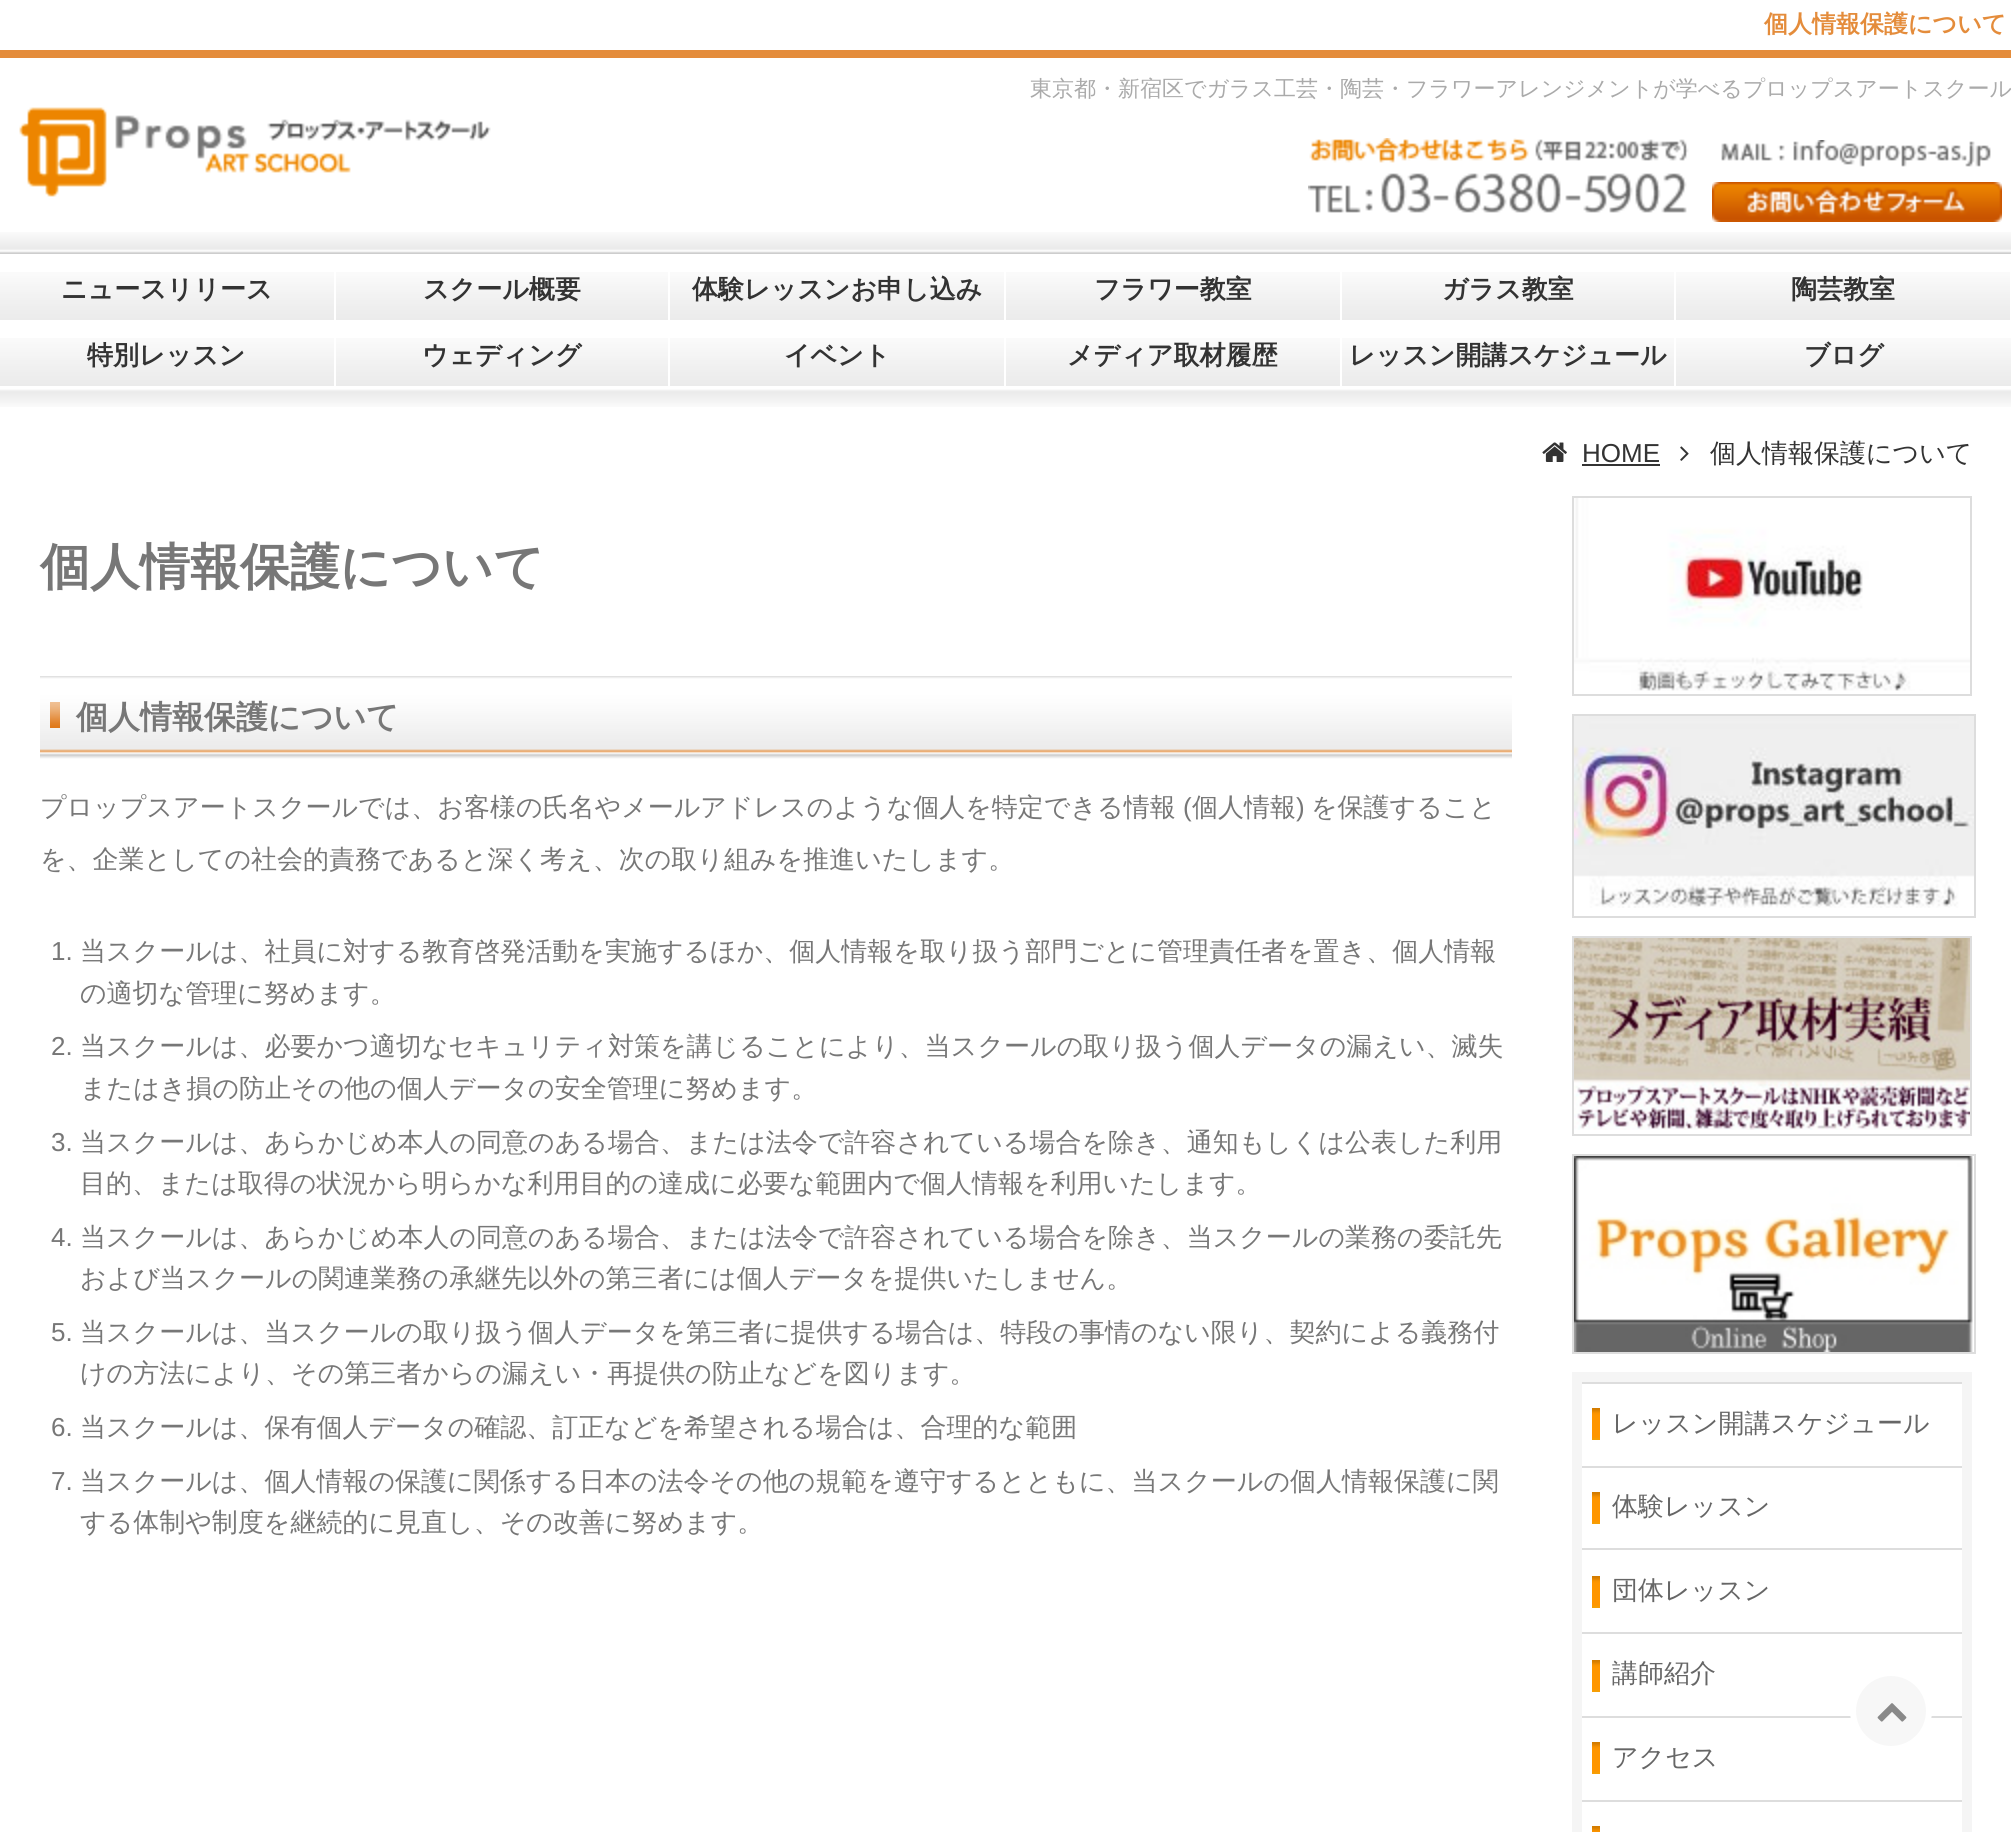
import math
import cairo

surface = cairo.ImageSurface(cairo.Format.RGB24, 2011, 1832)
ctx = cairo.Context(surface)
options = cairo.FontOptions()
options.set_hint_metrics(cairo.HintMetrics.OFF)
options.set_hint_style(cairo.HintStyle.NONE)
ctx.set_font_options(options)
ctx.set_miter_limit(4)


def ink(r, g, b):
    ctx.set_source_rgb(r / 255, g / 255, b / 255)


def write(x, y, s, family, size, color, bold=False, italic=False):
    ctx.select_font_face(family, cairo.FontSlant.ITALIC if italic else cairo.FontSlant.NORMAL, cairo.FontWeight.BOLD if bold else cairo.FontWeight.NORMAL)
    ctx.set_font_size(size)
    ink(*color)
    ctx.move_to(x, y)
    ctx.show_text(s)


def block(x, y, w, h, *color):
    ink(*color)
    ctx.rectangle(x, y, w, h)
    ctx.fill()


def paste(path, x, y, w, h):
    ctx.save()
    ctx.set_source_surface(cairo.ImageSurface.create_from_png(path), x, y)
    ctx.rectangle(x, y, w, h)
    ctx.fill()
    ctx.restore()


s1 = dict(family="WenQuanYi Zen Hei", size=24, color=(228, 140, 59), bold=True)
s2 = dict(family="WenQuanYi Zen Hei Medium", size=22, color=(170, 170, 170))
s3 = dict(family="WenQuanYi Zen Hei", size=26, color=(51, 51, 51), bold=True)
s4 = dict(family="Liberation Sans", size=26, color=(51, 51, 51))
s5 = dict(family="WenQuanYi Zen Hei Medium", size=26, color=(51, 51, 51))
s6 = dict(family="WenQuanYi Zen Hei", size=50, color=(119, 119, 119), bold=True)
s7 = dict(family="WenQuanYi Zen Hei", size=32, color=(119, 119, 119), bold=True)
s8 = dict(family="WenQuanYi Zen Hei Medium", size=26, color=(119, 119, 119))
s9 = dict(family="Liberation Sans", size=26, color=(119, 119, 119))
s10 = dict(family="WenQuanYi Zen Hei Medium", size=26, color=(102, 102, 102))

ink(255, 255, 255)
ctx.paint()
write(1764, 32, "個人情報保護について", **s1)
paste("pic1.png", 0, 232, 2011, 22)
block(0, 50, 2011, 8, 228, 140, 59)
write(1030, 96, "東京都・新宿区でガラス工芸・陶芸・フラワーアレンジメントが学べるプロップスアートスクール", **s2)
paste("pic2.png", 1308, 138, 381, 75)
paste("pic3.png", 1721, 140, 270, 27)
paste("pic4.png", 1712, 182, 290, 40)
paste("pic5.png", 19, 107, 472, 90)
paste("pic6.png", 0, 389, 2011, 18)
paste("pic7.png", 0, 272, 334, 48)
write(61, 298, "ニュースリリース", **s3)
paste("pic8.png", 336, 272, 332, 48)
write(423, 298, "スクール概要", **s3)
paste("pic7.png", 670, 272, 334, 48)
write(692, 298, "体験レッスンお申し込み", **s3)
paste("pic7.png", 1006, 272, 334, 48)
write(1094, 298, "フラワー教室", **s3)
paste("pic8.png", 1342, 272, 332, 48)
write(1442, 298, "ガラス教室", **s3)
paste("pic7.png", 1676, 272, 334, 48)
write(1791, 298, "陶芸教室", **s3)
paste("pic7.png", 0, 338, 334, 48)
write(87, 364, "特別レッスン", **s3)
paste("pic8.png", 336, 338, 332, 48)
write(422, 364, "ウェディング", **s3)
paste("pic7.png", 670, 338, 334, 48)
write(784, 364, "イベント", **s3)
paste("pic7.png", 1006, 338, 334, 48)
write(1067, 364, "メディア取材履歴", **s3)
paste("pic8.png", 1342, 338, 332, 48)
write(1349, 364, "レッスン開講スケジュール", **s3)
paste("pic9.png", 1676, 338, 335, 48)
write(1804, 364, "ブログ", **s3)
paste("pic10.png", 1542, 442, 25, 20)
write(1582, 462, "HOME", **s4)
block(1582, 464, 78, 2, 51, 51, 51)
paste("pic11.png", 1680, 446, 9, 15)
write(1710, 462, "個人情報保護について", **s5)
write(40, 584, "個人情報保護について", **s6)
paste("pic12.png", 40, 676, 1472, 83)
paste("pic13.png", 50, 702, 10, 26)
write(76, 728, "個人情報保護について", **s7)
write(40, 816, "プロップスアートスクールでは、お客様の氏名やメールアドレスのような個人を特定できる情報", **s8)
write(1183, 816, "(", **s9)
write(1192, 816, "個人情報", **s8)
write(1296, 816, ")", **s9)
write(1311, 816, "を保護すること", **s8)
write(40, 868, "を、企業としての社会的責務であると深く考え、次の取り組みを推進いたします。", **s8)
write(51, 960, "1.", **s9)
write(80, 960, "当スクールは、社員に対する教育啓発活動を実施するほか、個人情報を取り扱う部門ごとに管理責任者を置き、個人情報", **s8)
write(80, 1002, "の適切な管理に努めます。", **s8)
write(51, 1055, "2.", **s9)
write(80, 1055, "当スクールは、必要かつ適切なセキュリティ対策を講じることにより、当スクールの取り扱う個人データの漏えい、滅失", **s8)
write(80, 1097, "またはき損の防止その他の個人データの安全管理に努めます。", **s8)
write(51, 1151, "3.", **s9)
write(80, 1151, "当スクールは、あらかじめ本人の同意のある場合、または法令で許容されている場合を除き、通知もしくは公表した利用", **s8)
write(80, 1192, "目的、または取得の状況から明らかな利用目的の達成に必要な範囲内で個人情報を利用いたします。", **s8)
write(51, 1246, "4.", **s9)
write(80, 1246, "当スクールは、あらかじめ本人の同意のある場合、または法令で許容されている場合を除き、当スクールの業務の委託先", **s8)
write(80, 1287, "および当スクールの関連業務の承継先以外の第三者には個人データを提供いたしません。", **s8)
write(51, 1341, "5.", **s9)
write(80, 1341, "当スクールは、当スクールの取り扱う個人データを第三者に提供する場合は、特段の事情のない限り、契約による義務付", **s8)
write(80, 1382, "けの方法により、その第三者からの漏えい・再提供の防止などを図ります。", **s8)
write(51, 1436, "6.", **s9)
write(80, 1436, "当スクールは、保有個人データの確認、訂正などを希望される場合は、合理的な範囲", **s8)
write(51, 1490, "7.", **s9)
write(80, 1490, "当スクールは、個人情報の保護に関係する日本の法令その他の規範を遵守するとともに、当スクールの個人情報保護に関", **s8)
write(80, 1531, "する体制や制度を継続的に見直し、その改善に努めます。", **s8)
ctx.rectangle(1573, 497, 398, 198)
ink(221, 221, 221)
ctx.stroke()
paste("pic14.png", 1574, 498, 396, 193)
ctx.rectangle(1573, 715, 402, 202)
ctx.stroke()
paste("pic15.png", 1574, 716, 400, 192)
ctx.rectangle(1573, 937, 398, 198)
ctx.stroke()
paste("pic16.png", 1574, 938, 396, 192)
ctx.rectangle(1573, 1155, 402, 198)
ctx.stroke()
paste("pic17.png", 1574, 1156, 399, 196)
block(1572, 1372, 400, 460, 245, 245, 245)
block(1582, 1384, 380, 448, 255, 255, 255)
block(1582, 1382, 380, 2, 221, 221, 221)
block(1582, 1466, 380, 2, 221, 221, 221)
paste("pic18.png", 1592, 1408, 8, 32)
write(1612, 1432, "レッスン開講スケジュール", **s10)
block(1582, 1548, 380, 2, 221, 221, 221)
paste("pic18.png", 1592, 1492, 8, 32)
write(1612, 1515, "体験レッスン", **s10)
block(1582, 1632, 380, 2, 221, 221, 221)
paste("pic18.png", 1592, 1576, 8, 32)
write(1612, 1599, "団体レッスン", **s10)
block(1582, 1716, 380, 2, 221, 221, 221)
paste("pic18.png", 1592, 1660, 8, 32)
write(1612, 1682, "講師紹介", **s10)
block(1582, 1800, 380, 2, 221, 221, 221)
paste("pic18.png", 1592, 1742, 8, 32)
write(1612, 1766, "アクセス", **s10)
paste("pic19.png", 1592, 1826, 8, 6)
ink(247, 247, 247)
ctx.arc(1891, 1711, 38, 0, 2 * math.pi)
ctx.fill_preserve()
ink(255, 255, 255)
ctx.set_line_width(6)
ctx.stroke()
paste("pic20.png", 1877, 1703, 30, 19)
surface.write_to_png("screenshot.png")
